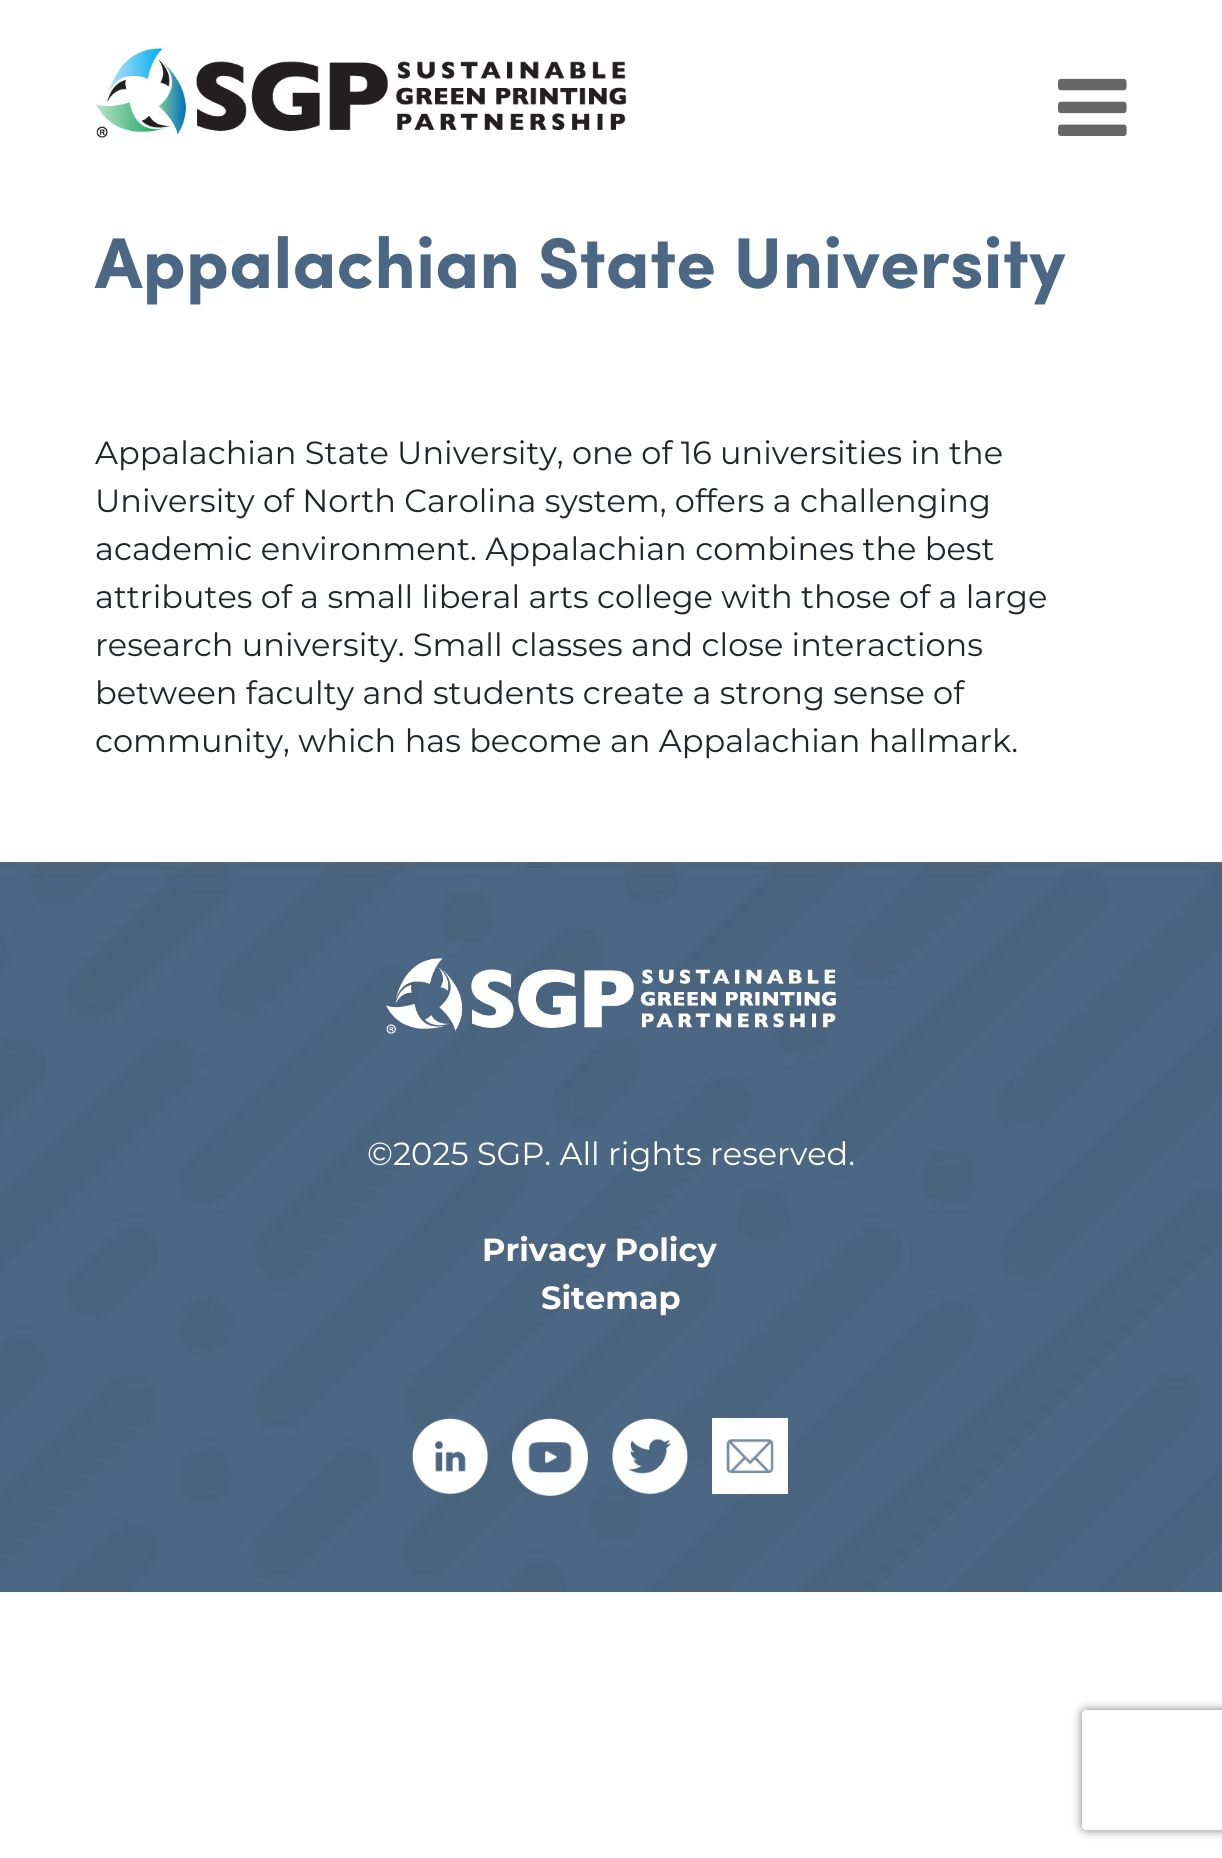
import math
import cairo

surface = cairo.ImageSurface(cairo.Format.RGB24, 1222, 1858)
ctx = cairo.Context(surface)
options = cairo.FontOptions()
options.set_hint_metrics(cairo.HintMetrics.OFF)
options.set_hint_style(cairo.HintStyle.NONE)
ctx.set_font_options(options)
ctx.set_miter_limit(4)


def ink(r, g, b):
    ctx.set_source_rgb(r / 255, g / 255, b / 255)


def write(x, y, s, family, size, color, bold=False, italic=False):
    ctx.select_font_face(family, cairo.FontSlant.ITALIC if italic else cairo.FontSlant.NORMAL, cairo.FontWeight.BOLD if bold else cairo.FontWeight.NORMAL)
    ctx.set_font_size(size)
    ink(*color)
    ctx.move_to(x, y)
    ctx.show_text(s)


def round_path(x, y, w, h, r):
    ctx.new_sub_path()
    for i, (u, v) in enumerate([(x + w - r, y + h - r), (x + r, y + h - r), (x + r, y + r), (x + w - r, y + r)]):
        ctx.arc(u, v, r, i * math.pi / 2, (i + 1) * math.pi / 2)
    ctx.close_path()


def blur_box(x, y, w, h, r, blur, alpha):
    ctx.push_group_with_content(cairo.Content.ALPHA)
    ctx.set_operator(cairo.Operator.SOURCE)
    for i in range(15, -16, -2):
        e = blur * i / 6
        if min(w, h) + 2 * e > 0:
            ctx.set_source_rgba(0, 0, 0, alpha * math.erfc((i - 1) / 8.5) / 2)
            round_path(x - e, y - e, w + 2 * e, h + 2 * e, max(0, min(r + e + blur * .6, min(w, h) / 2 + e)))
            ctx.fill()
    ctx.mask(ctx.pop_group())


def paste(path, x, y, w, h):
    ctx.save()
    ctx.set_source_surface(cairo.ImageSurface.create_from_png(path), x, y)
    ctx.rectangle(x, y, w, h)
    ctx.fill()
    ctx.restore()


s1 = dict(family="Sofia", size=72, color=(76, 103, 131), bold=True)
s2 = dict(family="Montserrat", size=32, color=(33, 37, 41))
s3 = dict(family="Montserrat", size=32, color=(255, 255, 255))
s4 = dict(family="Montserrat", size=32, color=(255, 255, 255), bold=True)

ink(255, 255, 255)
ctx.paint()
paste("pic1.png", 96, 48, 530, 90)
paste("pic2.png", 1058, 78, 69, 58)
write(95, 288, "Appalachian State University", **s1)
write(95, 464, "Appalachian State University, one of 16 universities in the", **s2)
write(95, 512, "University of North Carolina system, offers a challenging", **s2)
write(95, 560, "academic environment. Appalachian combines the best", **s2)
write(95, 608, "attributes of a small liberal arts college with those of a large", **s2)
write(95, 656, "research university. Small classes and close interactions", **s2)
write(95, 704, "between faculty and students create a strong sense of", **s2)
write(95, 752, "community, which has become an Appalachian hallmark.", **s2)
paste("pic3.png", 0, 862, 1222, 730)
paste("pic4.png", 386, 958, 450, 76)
write(367, 1165, "©2025 SGP. All rights reserved.", **s3)
write(482, 1261, "Privacy Policy", **s4)
write(541, 1309, "Sitemap", **s4)
paste("pic5.png", 412, 1418, 76, 76)
paste("pic6.png", 512, 1418, 76, 78)
paste("pic7.png", 612, 1418, 76, 76)
paste("pic8.png", 712, 1418, 76, 76)
ctx.save()
ctx.set_fill_rule(cairo.FillRule.EVEN_ODD)
ctx.new_path()
ctx.move_to(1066, 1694)
ctx.line_to(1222, 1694)
ctx.line_to(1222, 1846)
ctx.line_to(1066, 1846)
ctx.close_path()
ctx.move_to(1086, 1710)
ctx.line_to(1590, 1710)
ctx.curve_to(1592, 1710, 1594, 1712, 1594, 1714)
ctx.line_to(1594, 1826)
ctx.curve_to(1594, 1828, 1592, 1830, 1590, 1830)
ctx.line_to(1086, 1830)
ctx.curve_to(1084, 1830, 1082, 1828, 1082, 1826)
ctx.line_to(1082, 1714)
ctx.curve_to(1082, 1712, 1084, 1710, 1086, 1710)
ctx.close_path()
ctx.clip()
ink(128, 128, 128)
blur_box(1082, 1710, 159, 120, 4, 5, 1)
ctx.restore()
surface.write_to_png("screenshot.png")
